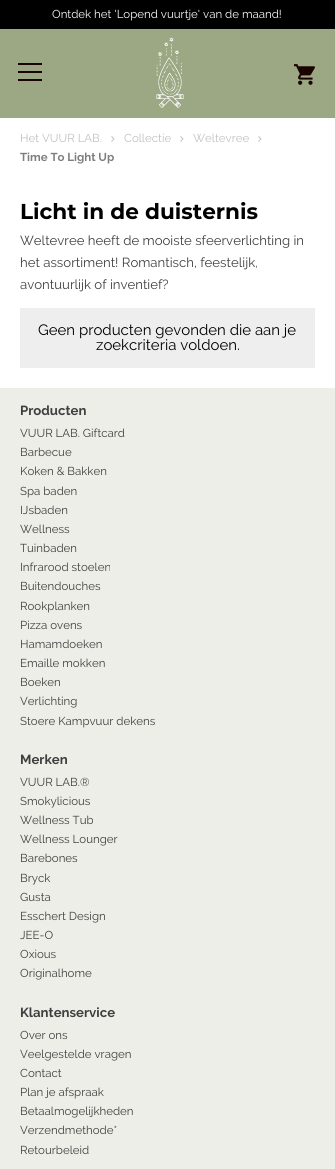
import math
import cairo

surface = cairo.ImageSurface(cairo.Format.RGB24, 335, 1169)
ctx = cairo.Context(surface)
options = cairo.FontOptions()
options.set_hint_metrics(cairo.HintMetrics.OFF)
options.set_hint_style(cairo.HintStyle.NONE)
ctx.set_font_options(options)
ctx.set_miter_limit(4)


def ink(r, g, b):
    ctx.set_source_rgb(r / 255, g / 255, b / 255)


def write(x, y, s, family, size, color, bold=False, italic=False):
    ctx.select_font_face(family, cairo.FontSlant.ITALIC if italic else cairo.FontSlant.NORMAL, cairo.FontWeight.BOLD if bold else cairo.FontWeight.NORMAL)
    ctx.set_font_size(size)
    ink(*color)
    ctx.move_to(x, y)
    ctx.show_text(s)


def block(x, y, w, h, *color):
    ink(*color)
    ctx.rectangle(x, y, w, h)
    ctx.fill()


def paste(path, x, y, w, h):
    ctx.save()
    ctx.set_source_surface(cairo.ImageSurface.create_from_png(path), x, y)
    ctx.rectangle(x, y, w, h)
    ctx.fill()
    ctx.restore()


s1 = dict(family="Raleway", size=11.5, color=(255, 255, 255))
s2 = dict(family="Raleway", size=11.5, color=(192, 192, 192))
s3 = dict(family="Raleway", size=11.5, color=(126, 126, 126), bold=True)
s4 = dict(family="Montserrat", size=21.6, color=(0, 0, 0), bold=True)
s5 = dict(family="Raleway", size=13.2, color=(63, 63, 63))
s6 = dict(family="Raleway", size=15, color=(0, 0, 0))
s7 = dict(family="Raleway", size=13.2, color=(63, 63, 63), bold=True)
s8 = dict(family="Raleway", size=11.5, color=(63, 63, 63))

ink(255, 255, 255)
ctx.paint()
block(0, 0, 335, 29, 0, 0, 0)
write(52, 18, "Ontdek het 'Lopend vuurtje' van de maand!", **s1)
block(0, 29, 335, 89, 155, 168, 131)
block(18, 63, 24, 2, 25, 4, 0)
block(18, 71, 24, 2, 25, 4, 0)
block(18, 79, 24, 2, 25, 4, 0)
paste("pic1.png", 156, 37, 28, 71)
paste("pic2.png", 294, 64, 21, 21)
write(20, 142, "Het VUUR LAB.", **s2)
paste("pic3.png", 111, 136, 4, 6)
write(124, 142, "Collectie", **s2)
paste("pic3.png", 180, 136, 4, 6)
write(193, 142, "Weltevree", **s2)
paste("pic3.png", 258, 136, 4, 6)
write(20, 161, "Time To Light Up", **s3)
write(20, 219, "Licht in de duisternis", **s4)
write(20, 245, "Weltevree heeft de mooiste sfeerverlichting in", **s5)
write(20, 267, "het assortiment! Romantisch, feestelijk,", **s5)
write(20, 289, "avontuurlijk of inventief?", **s5)
block(20, 308, 295, 60, 238, 238, 238)
write(38, 335, "Geen producten gevonden die aan je", **s6)
write(96, 350, "zoekcriteria voldoen.", **s6)
block(0, 388, 335, 781, 236, 238, 231)
write(20, 415, "Producten", **s7)
write(20, 437, "VUUR LAB. Giftcard", **s8)
write(20, 456, "Barbecue", **s8)
write(20, 475, "Koken & Bakken", **s8)
write(20, 495, "Spa baden", **s8)
write(20, 514, "IJsbaden", **s8)
write(20, 533, "Wellness", **s8)
write(20, 552, "Tuinbaden", **s8)
write(20, 571, "Infrarood stoelen", **s8)
write(20, 590, "Buitendouches", **s8)
write(20, 610, "Rookplanken", **s8)
write(20, 629, "Pizza ovens", **s8)
write(20, 648, "Hamamdoeken", **s8)
write(20, 667, "Emaille mokken", **s8)
write(20, 686, "Boeken", **s8)
write(20, 705, "Verlichting", **s8)
write(20, 725, "Stoere Kampvuur dekens", **s8)
write(20, 764, "Merken", **s7)
write(20, 786, "VUUR LAB.®", **s8)
write(20, 805, "Smokylicious", **s8)
write(20, 824, "Wellness Tub", **s8)
write(20, 843, "Wellness Lounger", **s8)
write(20, 862, "Barebones", **s8)
write(20, 882, "Bryck", **s8)
write(20, 901, "Gusta", **s8)
write(20, 920, "Esschert Design", **s8)
write(20, 939, "JEE-O", **s8)
write(20, 958, "Oxious", **s8)
write(20, 977, "Originalhome", **s8)
write(20, 1017, "Klantenservice", **s7)
write(20, 1039, "Over ons", **s8)
write(20, 1058, "Veelgestelde vragen", **s8)
write(20, 1077, "Contact", **s8)
write(20, 1096, "Plan je afspraak", **s8)
write(20, 1115, "Betaalmogelijkheden", **s8)
write(20, 1134, "Verzendmethode*", **s8)
write(20, 1154, "Retourbeleid", **s8)
surface.write_to_png("screenshot.png")
